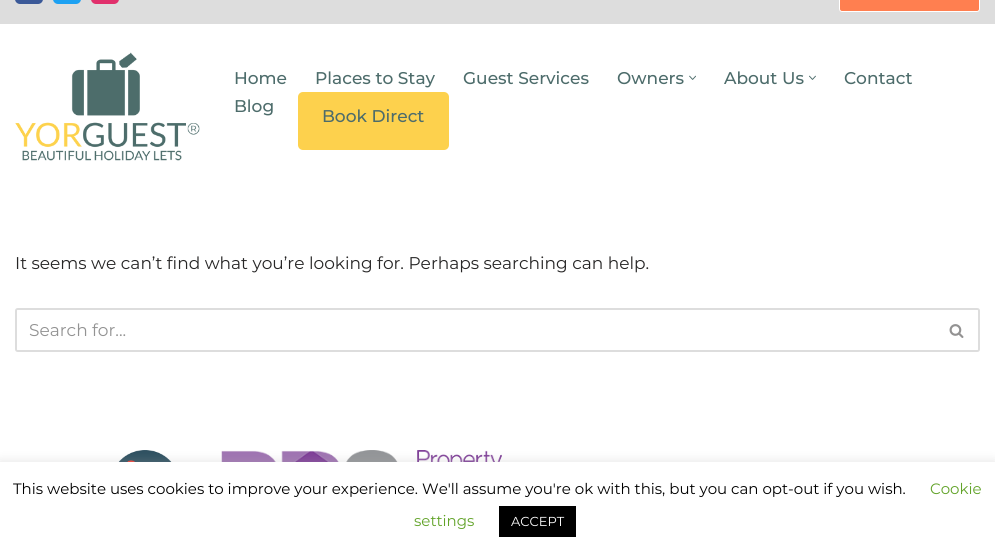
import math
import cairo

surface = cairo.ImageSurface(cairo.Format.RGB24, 995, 554)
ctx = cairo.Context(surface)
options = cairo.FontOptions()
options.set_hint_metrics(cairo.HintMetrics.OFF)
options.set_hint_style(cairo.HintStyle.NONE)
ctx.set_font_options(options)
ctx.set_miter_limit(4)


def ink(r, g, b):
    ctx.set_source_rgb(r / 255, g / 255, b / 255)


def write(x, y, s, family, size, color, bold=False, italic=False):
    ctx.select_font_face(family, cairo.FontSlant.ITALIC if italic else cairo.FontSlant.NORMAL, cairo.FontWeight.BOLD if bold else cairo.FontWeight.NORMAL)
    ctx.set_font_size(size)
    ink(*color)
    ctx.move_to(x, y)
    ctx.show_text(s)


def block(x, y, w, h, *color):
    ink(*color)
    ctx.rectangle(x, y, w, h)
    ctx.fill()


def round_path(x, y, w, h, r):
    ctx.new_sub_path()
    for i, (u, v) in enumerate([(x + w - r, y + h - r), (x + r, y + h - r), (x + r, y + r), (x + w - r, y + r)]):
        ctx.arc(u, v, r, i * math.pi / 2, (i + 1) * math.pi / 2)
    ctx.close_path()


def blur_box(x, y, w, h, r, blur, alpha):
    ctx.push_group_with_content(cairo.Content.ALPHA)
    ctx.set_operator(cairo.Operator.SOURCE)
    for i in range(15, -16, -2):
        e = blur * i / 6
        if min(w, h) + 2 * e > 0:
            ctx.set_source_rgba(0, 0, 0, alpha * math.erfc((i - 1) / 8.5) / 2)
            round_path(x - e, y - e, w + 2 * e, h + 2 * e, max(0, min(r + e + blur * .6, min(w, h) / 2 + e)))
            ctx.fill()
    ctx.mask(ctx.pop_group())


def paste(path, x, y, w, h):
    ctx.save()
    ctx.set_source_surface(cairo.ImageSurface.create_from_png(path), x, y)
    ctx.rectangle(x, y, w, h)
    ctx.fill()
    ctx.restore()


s1 = dict(family="Montserrat Medium", size=17, color=(77, 108, 107))
s2 = dict(family="Montserrat", size=17, color=(39, 38, 38))
s3 = dict(family="Montserrat", size=17, color=(147, 147, 147))
s4 = dict(family="Montserrat", size=15, color=(0, 0, 0))
s5 = dict(family="Montserrat", size=15, color=(98, 163, 41))
s6 = dict(family="Montserrat", size=13, color=(255, 255, 255))

ink(255, 255, 255)
ctx.paint()
block(0, 0, 995, 24, 221, 221, 221)
ink(59, 89, 152)
round_path(15, -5, 28, 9, 5)
ctx.fill()
ink(29, 161, 242)
round_path(53, -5, 28, 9, 5)
ctx.fill()
ink(225, 48, 108)
round_path(91, -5, 28, 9, 5)
ctx.fill()
ink(255, 127, 80)
round_path(839.5, -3.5, 140, 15, 2.5)
ctx.fill_preserve()
ink(255, 255, 255)
ctx.set_line_width(1)
ctx.stroke()
paste("pic1.png", 15, 52, 185, 109)
write(234, 84, "Home", **s1)
write(315, 84, "Places to Stay", **s1)
write(463, 84, "Guest Services", **s1)
write(617, 84, "Owners", **s1)
paste("pic2.png", 689, 75, 7, 5)
write(724, 84, "About Us", **s1)
paste("pic3.png", 809, 75, 7, 5)
write(844, 84, "Contact", **s1)
write(234, 112, "Blog", **s1)
ink(253, 209, 77)
round_path(298, 92, 151, 58, 5)
ctx.fill()
write(322, 122, "Book Direct", **s1)
write(15, 269, "It seems we can’t find what you’re looking for. Perhaps searching can help.", **s2)
ink(221, 221, 221)
ctx.set_fill_rule(cairo.FillRule.EVEN_ODD)
ctx.new_path()
ctx.move_to(18, 308)
ctx.line_to(935, 308)
ctx.line_to(935, 352)
ctx.line_to(18, 352)
ctx.curve_to(16, 352, 15, 351, 15, 349)
ctx.line_to(15, 311)
ctx.curve_to(15, 309, 16, 308, 18, 308)
ctx.close_path()
ctx.move_to(18, 310)
ctx.line_to(935, 310)
ctx.line_to(935, 350)
ctx.line_to(18, 350)
ctx.curve_to(17, 350, 17, 350, 17, 349)
ctx.line_to(17, 311)
ctx.curve_to(17, 310, 17, 310, 18, 310)
ctx.close_path()
ctx.fill()
write(29, 336, "Search for...", **s3)
ink(221, 221, 221)
ctx.new_path()
ctx.move_to(935, 308)
ctx.line_to(977, 308)
ctx.curve_to(979, 308, 980, 309, 980, 311)
ctx.line_to(980, 349)
ctx.curve_to(980, 351, 979, 352, 977, 352)
ctx.line_to(935, 352)
ctx.close_path()
ctx.move_to(935, 310)
ctx.line_to(977, 310)
ctx.curve_to(978, 310, 978, 310, 978, 311)
ctx.line_to(978, 349)
ctx.curve_to(978, 350, 978, 350, 977, 350)
ctx.line_to(935, 350)
ctx.close_path()
ctx.fill()
paste("pic4.png", 949, 324, 15, 14)
paste("pic5.png", 110, 450, 70, 12)
paste("pic6.png", 221, 450, 281, 12)
ink(172, 171, 171)
blur_box(0, 461, 995, 92, 0, 5, 0.3)
block(0, 462, 995, 92, 255, 255, 255)
write(13, 494, "This website uses cookies to improve your experience. We'll assume you're ok with this, but you can opt-out if you wish.", **s4)
write(930, 494, "Cookie", **s5)
write(414, 526, "settings", **s5)
block(499, 506, 77, 31, 0, 0, 0)
write(511, 526, "ACCEPT", **s6)
surface.write_to_png("screenshot.png")
